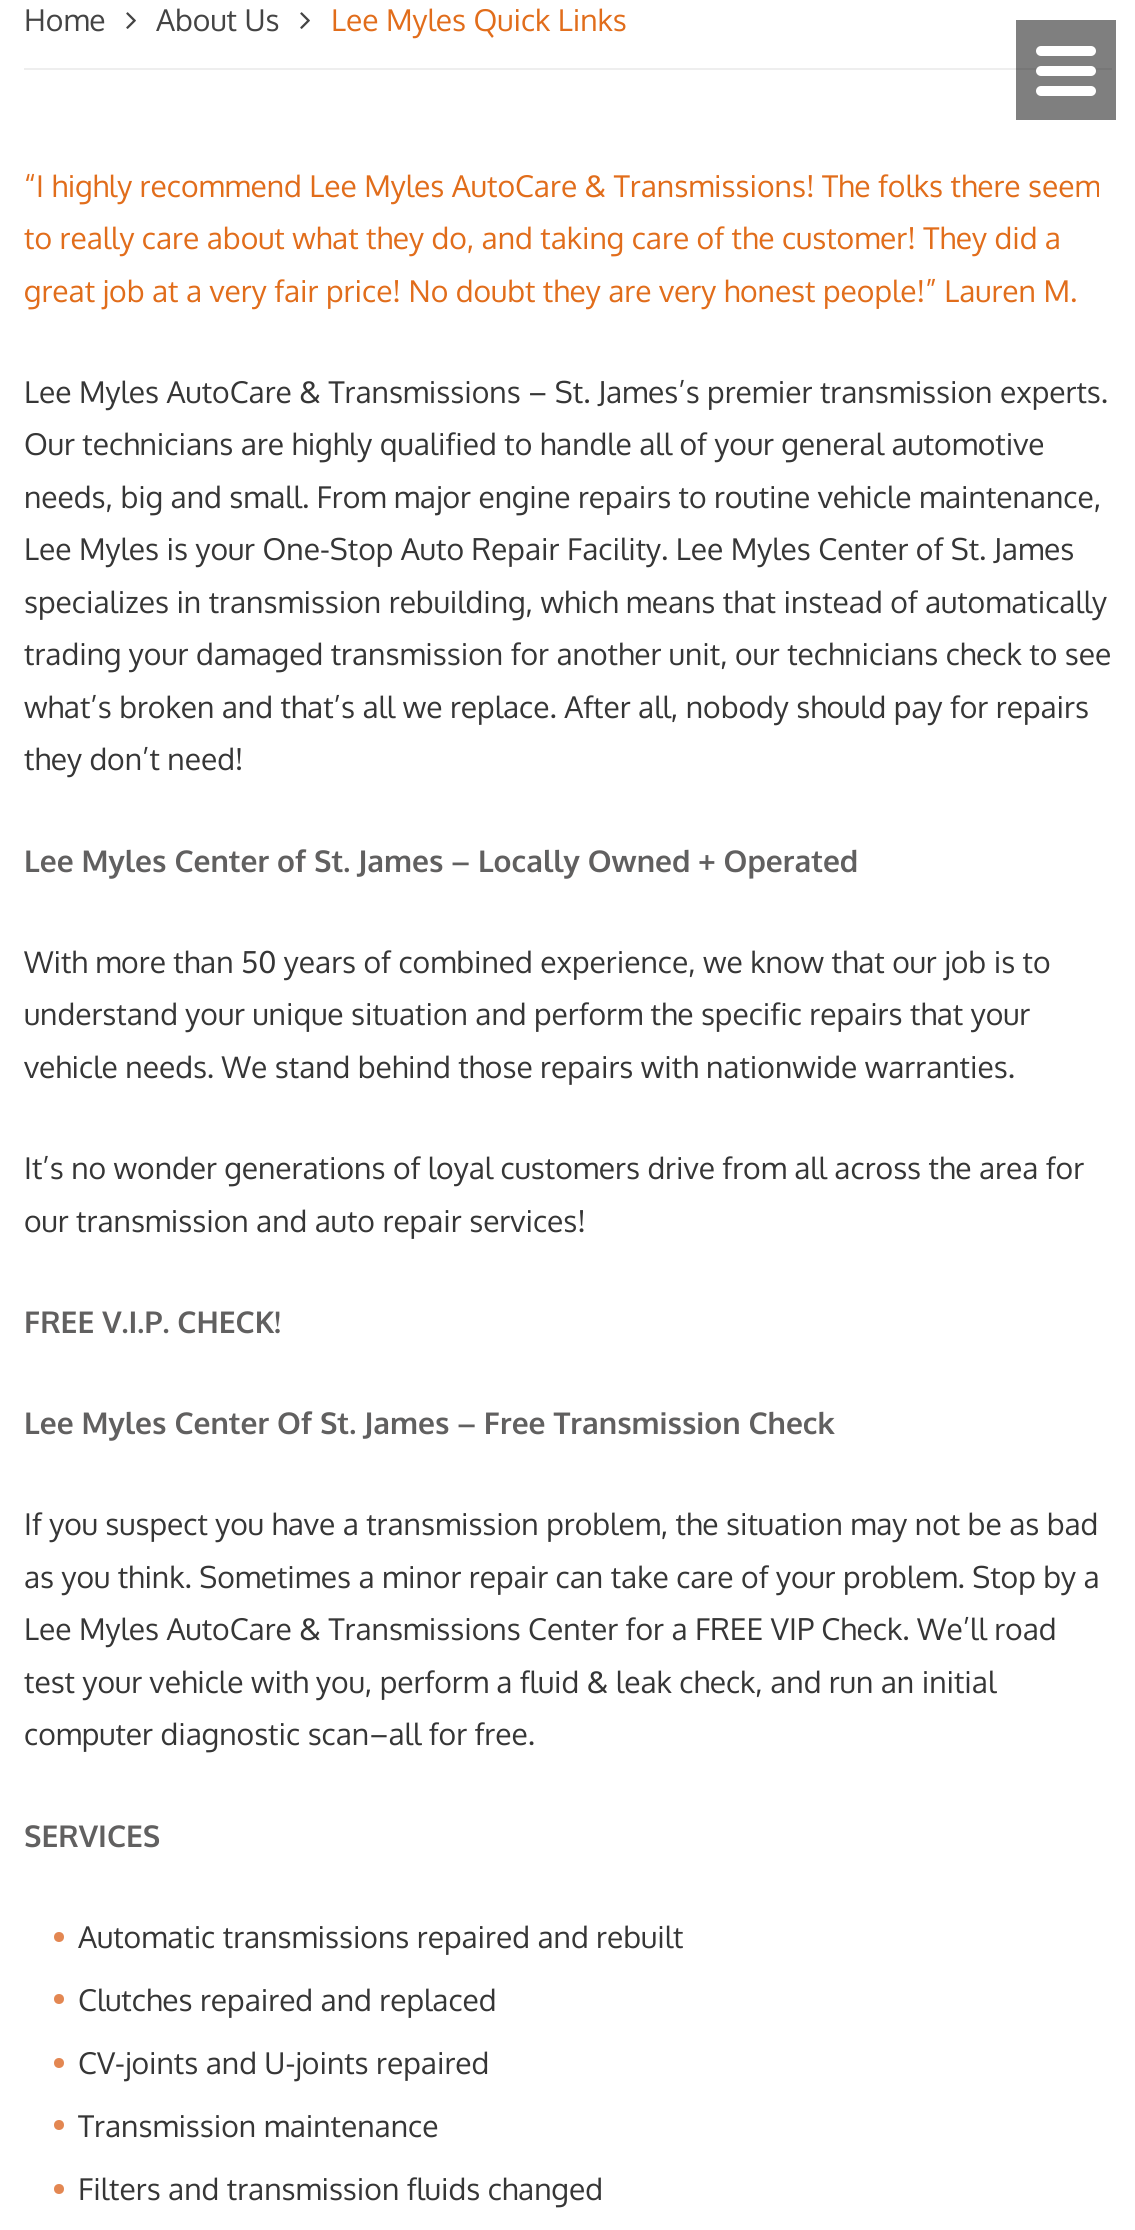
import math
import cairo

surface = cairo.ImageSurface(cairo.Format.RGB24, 1135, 2230)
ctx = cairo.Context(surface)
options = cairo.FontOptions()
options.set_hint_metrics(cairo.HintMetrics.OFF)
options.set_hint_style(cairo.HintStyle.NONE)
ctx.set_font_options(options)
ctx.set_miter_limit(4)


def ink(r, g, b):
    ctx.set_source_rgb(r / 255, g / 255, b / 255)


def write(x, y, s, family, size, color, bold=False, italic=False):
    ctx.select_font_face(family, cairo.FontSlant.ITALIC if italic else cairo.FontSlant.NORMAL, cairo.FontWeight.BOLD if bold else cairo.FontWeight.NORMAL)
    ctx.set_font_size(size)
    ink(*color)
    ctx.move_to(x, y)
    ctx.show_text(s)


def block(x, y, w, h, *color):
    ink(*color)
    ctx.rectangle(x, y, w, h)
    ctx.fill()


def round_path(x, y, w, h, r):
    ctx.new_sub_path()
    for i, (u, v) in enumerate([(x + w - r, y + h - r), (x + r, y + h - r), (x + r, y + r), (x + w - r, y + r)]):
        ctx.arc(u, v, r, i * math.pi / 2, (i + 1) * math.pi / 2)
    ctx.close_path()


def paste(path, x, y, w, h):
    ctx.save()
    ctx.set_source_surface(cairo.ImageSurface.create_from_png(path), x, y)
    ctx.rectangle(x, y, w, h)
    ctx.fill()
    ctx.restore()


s1 = dict(family="Oxygen", size=30, color=(68, 68, 68))
s2 = dict(family="Oxygen", size=30, color=(225, 109, 27))
s3 = dict(family="Oxygen", size=30, color=(54, 54, 54))
s4 = dict(family="Oxygen", size=30, color=(97, 96, 96), bold=True)

ink(255, 255, 255)
ctx.paint()
block(24, 68, 1088, 2, 238, 238, 238)
write(24, 31, "Home", **s1)
paste("pic1.png", 126, 12, 10, 17)
write(156, 31, "About Us", **s1)
paste("pic1.png", 300, 12, 10, 17)
write(331, 31, "Lee Myles Quick Links", **s2)
write(24, 197, "“I highly recommend Lee Myles AutoCare & Transmissions! The folks there seem", **s2)
write(24, 249, "to really care about what they do, and taking care of the customer! They did a", **s2)
write(24, 302, "great job at a very fair price! No doubt they are very honest people!” Lauren M.", **s2)
write(24, 403, "Lee Myles AutoCare & Transmissions – St. James’s premier transmission experts.", **s3)
write(24, 455, "Our technicians are highly qualified to handle all of your general automotive", **s3)
write(24, 508, "needs, big and small. From major engine repairs to routine vehicle maintenance,", **s3)
write(24, 560, "Lee Myles is your One-Stop Auto Repair Facility. Lee Myles Center of St. James", **s3)
write(24, 613, "specializes in transmission rebuilding, which means that instead of automatically", **s3)
write(24, 665, "trading your damaged transmission for another unit, our technicians check to see", **s3)
write(24, 718, "what’s broken and that’s all we replace. After all, nobody should pay for repairs", **s3)
write(24, 770, "they don’t need!", **s3)
write(24, 872, "Lee Myles Center of St. James – Locally Owned + Operated", **s4)
write(24, 973, "With more than 50 years of combined experience, we know that our job is to", **s3)
write(24, 1025, "understand your unique situation and perform the specific repairs that your", **s3)
write(24, 1078, "vehicle needs. We stand behind those repairs with nationwide warranties.", **s3)
write(24, 1179, "It’s no wonder generations of loyal customers drive from all across the area for", **s3)
write(24, 1232, "our transmission and auto repair services!", **s3)
write(24, 1333, "FREE V.I.P. CHECK!", **s4)
write(24, 1434, "Lee Myles Center Of St. James – Free Transmission Check", **s4)
write(24, 1535, "If you suspect you have a transmission problem, the situation may not be as bad", **s3)
write(24, 1588, "as you think. Sometimes a minor repair can take care of your problem. Stop by a", **s3)
write(24, 1640, "Lee Myles AutoCare & Transmissions Center for a FREE VIP Check. We’ll road", **s3)
write(24, 1693, "test your vehicle with you, perform a fluid & leak check, and run an initial", **s3)
write(24, 1745, "computer diagnostic scan–all for free.", **s3)
write(24, 1847, "SERVICES", **s4)
ink(227, 135, 82)
ctx.new_path()
ctx.arc(59, 1937, 5, 0, 2 * math.pi)
ctx.fill()
write(78, 1948, "Automatic transmissions repaired and rebuilt", **s3)
ink(227, 135, 82)
ctx.new_path()
ctx.arc(59, 1999, 5, 0, 2 * math.pi)
ctx.fill()
write(78, 2011, "Clutches repaired and replaced", **s3)
ink(227, 135, 82)
ctx.new_path()
ctx.arc(59, 2063, 5, 0, 2 * math.pi)
ctx.fill()
write(78, 2074, "CV-joints and U-joints repaired", **s3)
ink(227, 135, 82)
ctx.new_path()
ctx.arc(59, 2125, 5, 0, 2 * math.pi)
ctx.fill()
write(78, 2137, "Transmission maintenance", **s3)
ink(227, 135, 82)
ctx.new_path()
ctx.arc(59, 2189, 5, 0, 2 * math.pi)
ctx.fill()
write(78, 2200, "Filters and transmission fluids changed", **s3)
ctx.set_source_rgba(0, 0, 0, 0.5)
ctx.rectangle(1016, 20, 100, 100)
ctx.fill()
ink(255, 255, 255)
round_path(1036, 66, 60, 10, 5)
ctx.fill()
round_path(1036, 46, 60, 10, 5)
ctx.fill()
round_path(1036, 86, 60, 10, 5)
ctx.fill()
surface.write_to_png("screenshot.png")
